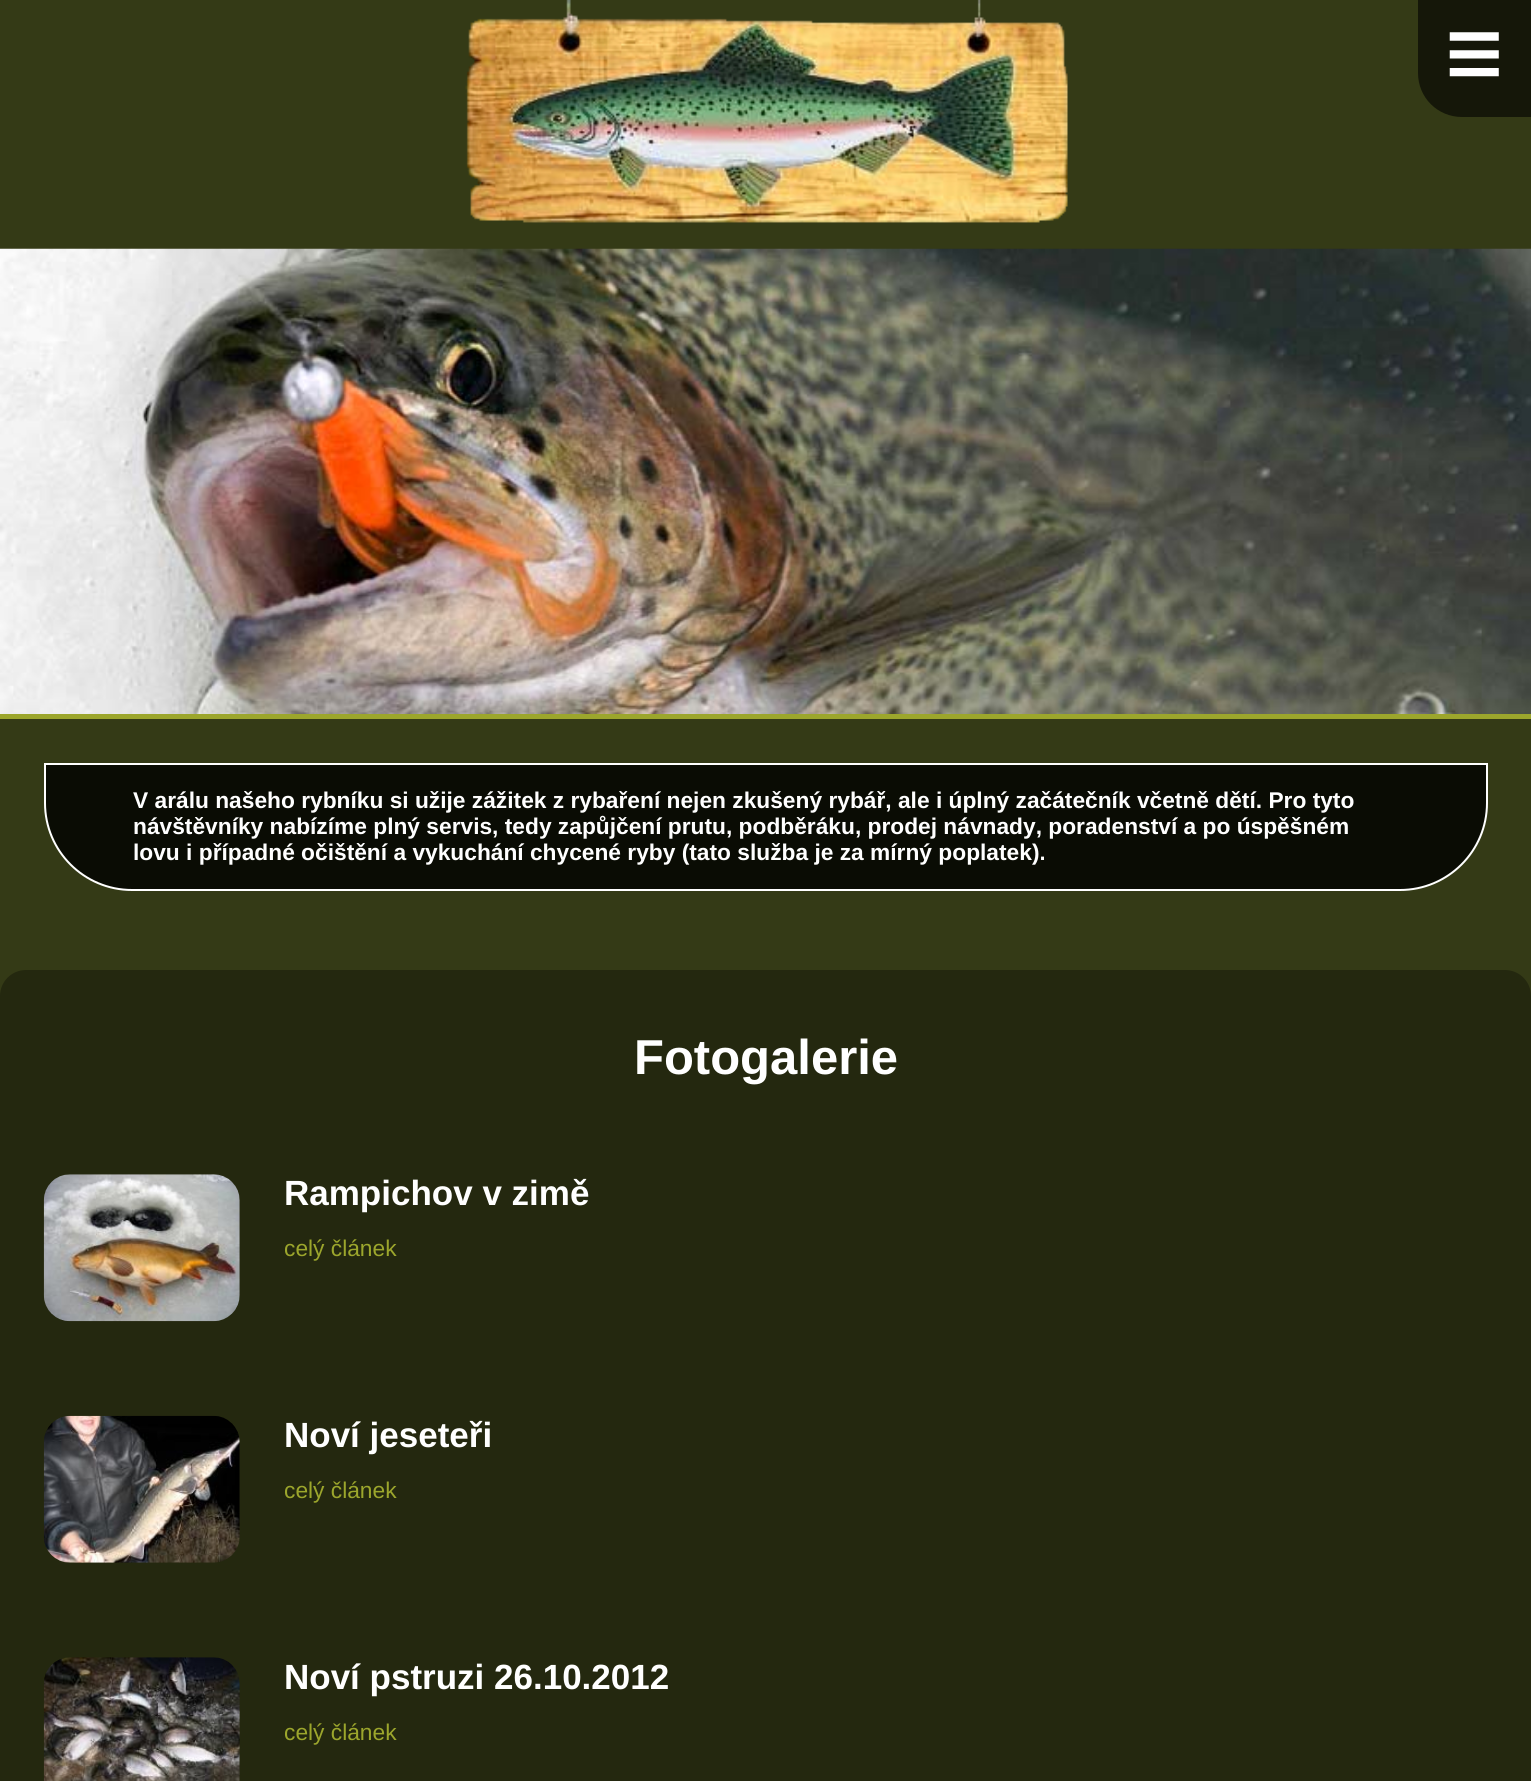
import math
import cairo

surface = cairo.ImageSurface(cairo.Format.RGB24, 1531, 1781)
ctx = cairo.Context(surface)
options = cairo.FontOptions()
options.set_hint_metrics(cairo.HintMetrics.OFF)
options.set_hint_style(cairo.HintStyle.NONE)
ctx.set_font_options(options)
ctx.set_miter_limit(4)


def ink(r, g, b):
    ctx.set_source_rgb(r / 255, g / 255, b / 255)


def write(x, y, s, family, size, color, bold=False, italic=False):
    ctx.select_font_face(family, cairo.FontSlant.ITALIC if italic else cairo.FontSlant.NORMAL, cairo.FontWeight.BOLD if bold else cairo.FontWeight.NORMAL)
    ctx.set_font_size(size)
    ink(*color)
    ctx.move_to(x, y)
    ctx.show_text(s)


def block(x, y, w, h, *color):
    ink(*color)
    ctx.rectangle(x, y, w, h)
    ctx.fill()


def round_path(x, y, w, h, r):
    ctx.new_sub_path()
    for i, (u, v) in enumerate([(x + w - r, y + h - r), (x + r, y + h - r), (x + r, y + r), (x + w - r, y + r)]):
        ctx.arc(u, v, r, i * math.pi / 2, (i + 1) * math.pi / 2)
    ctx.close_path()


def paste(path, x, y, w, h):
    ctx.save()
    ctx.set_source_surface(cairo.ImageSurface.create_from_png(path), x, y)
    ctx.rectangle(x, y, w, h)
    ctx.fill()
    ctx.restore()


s1 = dict(family="Liberation Sans", size=22.75, color=(255, 255, 255), bold=True)
s2 = dict(family="Liberation Sans", size=49, color=(255, 255, 255), bold=True)
s3 = dict(family="Liberation Sans", size=35, color=(255, 255, 255), bold=True)
s4 = dict(family="Liberation Sans", size=22.75, color=(156, 166, 44))

ink(52, 58, 22)
ctx.paint()
paste("pic1.png", 465, 0, 603, 223)
ink(21, 23, 9)
ctx.new_path()
ctx.move_to(1418, 0)
ctx.line_to(1531, 0)
ctx.line_to(1531, 117)
ctx.line_to(1462, 117)
ctx.curve_to(1437.5, 117, 1418, 97.5, 1418, 73)
ctx.close_path()
ctx.fill()
paste("pic2.png", 1449, 32, 50, 45)
paste("pic3.png", 0, 248, 1531, 466)
block(0, 714, 1531, 5, 156, 166, 44)
ink(10, 12, 4)
ctx.new_path()
ctx.move_to(45, 764)
ctx.line_to(1487, 764)
ctx.line_to(1487, 803)
ctx.curve_to(1487, 851, 1448, 890, 1400, 890)
ctx.line_to(132, 890)
ctx.curve_to(84, 890, 45, 851, 45, 803)
ctx.close_path()
ctx.fill_preserve()
ink(255, 255, 255)
ctx.stroke()
write(133, 808, "V arálu našeho rybníku si užije zážitek z rybaření nejen zkušený rybář, ale i úplný začátečník včetně dětí. Pro tyto", **s1)
write(133, 834, "návštěvníky nabízíme plný servis, tedy zapůjčení prutu, podběráku, prodej návnady, poradenství a po úspěšném", **s1)
write(133, 860, "lovu i případné očištění a vykuchání chycené ryby (tato služba je za mírný poplatek).", **s1)
ink(36, 40, 15)
round_path(0, 970, 1531, 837, 26)
ctx.fill()
write(634, 1074, "Fotogalerie", **s2)
paste("pic4.png", 43, 1174, 197, 148)
write(284, 1205, "Rampichov v zimě", **s3)
write(284, 1256, "celý článek", **s4)
paste("pic5.png", 43, 1415, 197, 148)
write(284, 1447, "Noví jeseteři", **s3)
write(284, 1498, "celý článek", **s4)
paste("pic6.png", 43, 1657, 197, 124)
write(284, 1689, "Noví pstruzi 26.10.2012", **s3)
write(284, 1740, "celý článek", **s4)
surface.write_to_png("screenshot.png")
